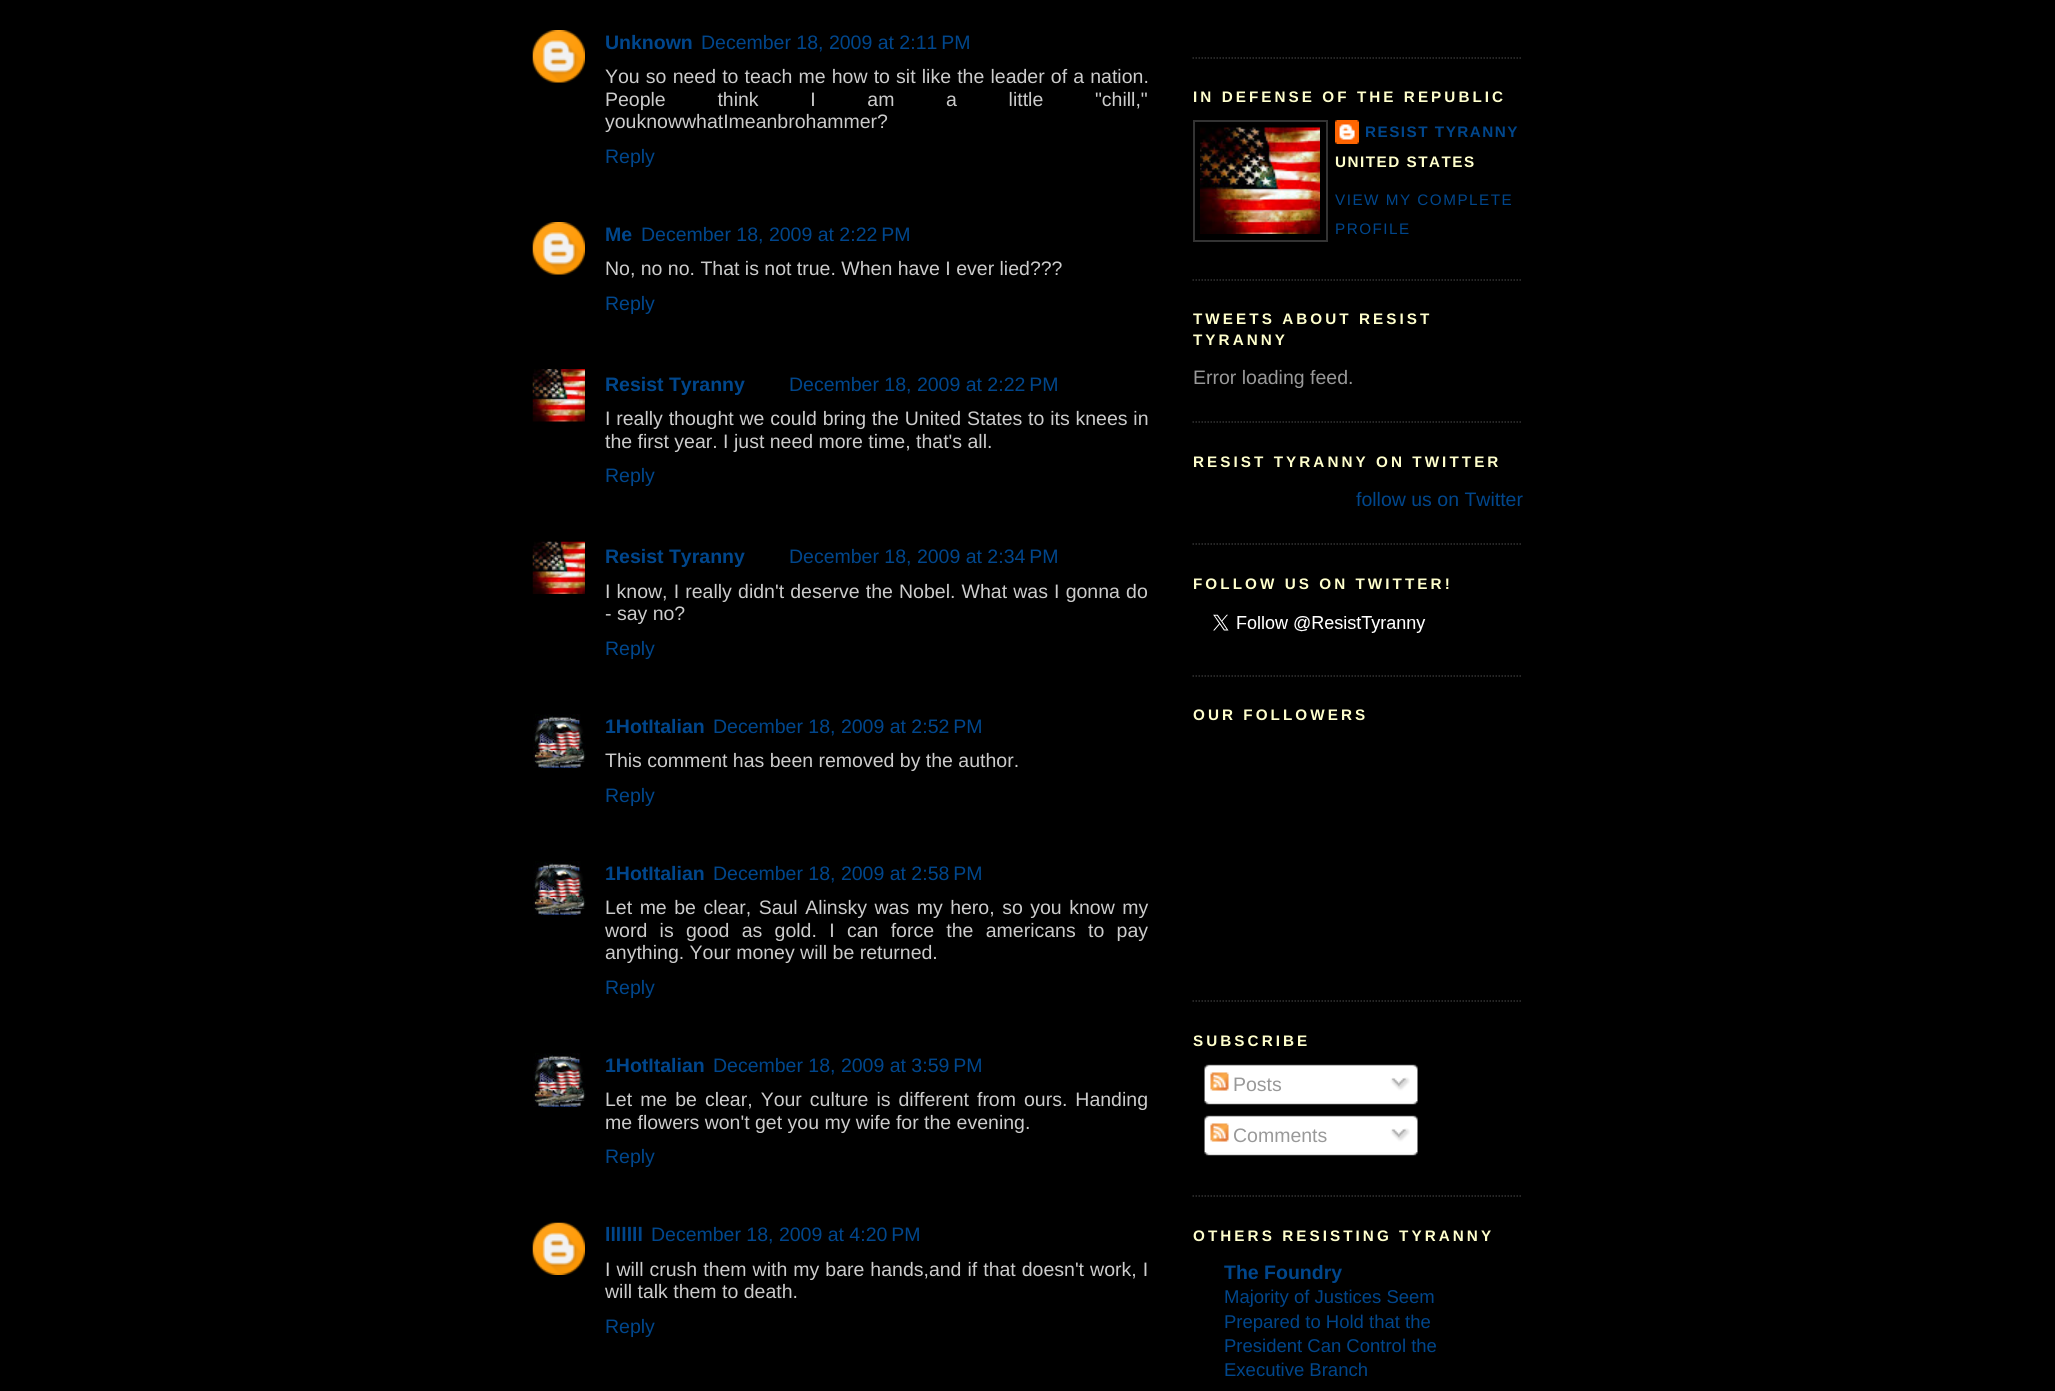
import math
import cairo

surface = cairo.ImageSurface(cairo.Format.RGB24, 2055, 1391)
ctx = cairo.Context(surface)
options = cairo.FontOptions()
options.set_hint_metrics(cairo.HintMetrics.OFF)
options.set_hint_style(cairo.HintStyle.NONE)
ctx.set_font_options(options)
ctx.set_miter_limit(4)


def ink(r, g, b):
    ctx.set_source_rgb(r / 255, g / 255, b / 255)


def write(x, y, s, family, size, color, bold=False, italic=False):
    ctx.select_font_face(family, cairo.FontSlant.ITALIC if italic else cairo.FontSlant.NORMAL, cairo.FontWeight.BOLD if bold else cairo.FontWeight.NORMAL)
    ctx.set_font_size(size)
    ink(*color)
    ctx.move_to(x, y)
    ctx.show_text(s)


def write_spaced(x, y, s, letter, word):
    ctx.move_to(x, y)
    for ch in s:
        ctx.show_text(ch)
        ctx.rel_move_to(letter + word * (ch == ' '), 0)


def paste(path, x, y, w, h):
    ctx.save()
    ctx.set_source_surface(cairo.ImageSurface.create_from_png(path), x, y)
    ctx.rectangle(x, y, w, h)
    ctx.fill()
    ctx.restore()


s1 = dict(family="Liberation Sans", size=19.5, color=(0, 70, 140), bold=True)
s2 = dict(family="Liberation Sans", size=19.5, color=(0, 70, 140))
s3 = dict(family="Liberation Sans", size=19.5, color=(204, 204, 204))
s4 = dict(family="Liberation Sans", size=19.5, color=(153, 153, 153))
s5 = dict(family="Liberation Sans", size=18.5, color=(0, 70, 140))

ink(0, 0, 0)
ctx.paint()
paste("pic1.png", 532, 30, 53, 53)
write(605, 49, "Unknown", **s1)
write(701, 49, "December 18, 2009 at 2:11 PM", **s2)
ink(204, 204, 204)
write_spaced(605, 83, "You so need to teach me how to sit like the leader of a nation.", 0, 0.75)
write_spaced(605, 106, "People think I am a little \"chill,\"", 0, 46.25)
write(605, 128, "youknowwhatImeanbrohammer?", **s3)
write(605, 163, "Reply", **s2)
paste("pic1.png", 532, 222, 53, 53)
write(605, 241, "Me", **s1)
write(641, 241, "December 18, 2009 at 2:22 PM", **s2)
write(605, 275, "No, no no. That is not true. When have I ever lied???", **s3)
write(605, 310, "Reply", **s2)
paste("pic2.png", 532, 369, 53, 53)
write(605, 391, "Resist Tyranny", **s1)
write(789, 391, "December 18, 2009 at 2:22 PM", **s2)
ink(204, 204, 204)
write_spaced(605, 425, "I really thought we could bring the United States to its knees in", 0, 0.4)
write(605, 448, "the first year. I just need more time, that's all.", **s3)
write(605, 482, "Reply", **s2)
paste("pic3.png", 532, 541, 53, 53)
write(605, 563, "Resist Tyranny", **s1)
write(789, 563, "December 18, 2009 at 2:34 PM", **s2)
ink(204, 204, 204)
write_spaced(605, 598, "I know, I really didn't deserve the Nobel. What was I gonna do", 0, 0.75)
write(605, 620, "- say no?", **s3)
write(605, 655, "Reply", **s2)
paste("pic4.png", 533, 714, 53, 54)
write(605, 733, "1HotItalian", **s1)
write(713, 733, "December 18, 2009 at 2:52 PM", **s2)
write(605, 767, "This comment has been removed by the author.", **s3)
write(605, 802, "Reply", **s2)
paste("pic5.png", 533, 861, 53, 54)
write(605, 880, "1HotItalian", **s1)
write(713, 880, "December 18, 2009 at 2:58 PM", **s2)
ink(204, 204, 204)
write_spaced(605, 914, "Let me be clear, Saul Alinsky was my hero, so you know my", 0, 2.1)
write_spaced(605, 937, "word is good as gold. I can force the americans to pay", 0, 6.9)
write(605, 959, "anything. Your money will be returned.", **s3)
write(605, 994, "Reply", **s2)
paste("pic4.png", 533, 1053, 53, 54)
write(605, 1072, "1HotItalian", **s1)
write(713, 1072, "December 18, 2009 at 3:59 PM", **s2)
ink(204, 204, 204)
write_spaced(605, 1106, "Let me be clear, Your culture is different from ours. Handing", 0, 2.6)
write(605, 1129, "me flowers won't get you my wife for the evening.", **s3)
write(605, 1163, "Reply", **s2)
paste("pic6.png", 532, 1222, 53, 53)
write(605, 1241, "lllllll", **s1)
write(651, 1241, "December 18, 2009 at 4:20 PM", **s2)
ink(204, 204, 204)
write_spaced(605, 1276, "I will crush them with my bare hands,and if that doesn't work, I", 0, 0.6)
write(605, 1298, "will talk them to death.", **s3)
write(605, 1333, "Reply", **s2)
ctx.new_path()
ctx.move_to(1192.5, 58)
ctx.line_to(1522.5, 58)
ink(51, 51, 51)
ctx.set_line_width(1.5)
ctx.set_dash([1.5, 1.5])
ctx.stroke()
ctx.new_path()
ctx.move_to(1192.5, 280)
ctx.line_to(1522.5, 280)
ctx.stroke()
ctx.select_font_face("Liberation Sans", cairo.FontSlant.NORMAL, cairo.FontWeight.BOLD)
ctx.set_font_size(15.25)
ink(255, 255, 204)
write_spaced(1193, 102, "IN DEFENSE OF THE REPUBLIC", 3.05, 0)
ctx.rectangle(1194, 121, 133, 120)
ink(51, 51, 51)
ctx.set_line_width(2)
ctx.set_dash([])
ctx.stroke()
paste("pic7.png", 1200, 127, 120, 107)
paste("pic8.png", 1335, 120, 24, 24)
ink(0, 70, 140)
write_spaced(1365, 137, "RESIST TYRANNY", 1.5, 0)
ink(255, 255, 204)
write_spaced(1335, 167, "UNITED STATES", 1.5, 0)
ctx.select_font_face("Liberation Sans")
ink(0, 70, 140)
write_spaced(1335, 205, "VIEW MY COMPLETE", 1.5, 0)
write_spaced(1335, 234, "PROFILE", 1.5, 0)
ctx.new_path()
ctx.move_to(1192.5, 422)
ctx.line_to(1522.5, 422)
ink(51, 51, 51)
ctx.set_line_width(1.5)
ctx.set_dash([1.5, 1.5])
ctx.stroke()
ctx.save()
ctx.rectangle(1193, 0, 330, 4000)
ctx.clip()
ctx.select_font_face("Liberation Sans", cairo.FontSlant.NORMAL, cairo.FontWeight.BOLD)
ink(255, 255, 204)
write_spaced(1193, 324, "TWEETS ABOUT RESIST", 3.05, 0)
write_spaced(1193, 345, "TYRANNY", 3.05, 0)
ctx.restore()
write(1193, 384, "Error loading feed.", **s4)
ctx.new_path()
ctx.move_to(1192.5, 544)
ctx.line_to(1522.5, 544)
ink(51, 51, 51)
ctx.stroke()
ctx.select_font_face("Liberation Sans", cairo.FontSlant.NORMAL, cairo.FontWeight.BOLD)
ctx.set_font_size(15.25)
ink(255, 255, 204)
write_spaced(1193, 467, "RESIST TYRANNY ON TWITTER", 3.05, 0)
write(1356, 506, "follow us on Twitter", **s2)
ctx.new_path()
ctx.move_to(1192.5, 676)
ctx.line_to(1522.5, 676)
ink(51, 51, 51)
ctx.stroke()
ctx.select_font_face("Liberation Sans", cairo.FontSlant.NORMAL, cairo.FontWeight.BOLD)
ctx.set_font_size(15.25)
ink(255, 255, 204)
write_spaced(1193, 589, "FOLLOW US ON TWITTER!", 3.05, 0)
paste("pic9.png", 1213, 614, 213, 19)
ctx.new_path()
ctx.move_to(1192.5, 1001)
ctx.line_to(1522.5, 1001)
ink(51, 51, 51)
ctx.stroke()
ink(255, 255, 204)
write_spaced(1193, 720, "OUR FOLLOWERS", 3.05, 0)
ctx.new_path()
ctx.move_to(1192.5, 1196)
ctx.line_to(1522.5, 1196)
ink(51, 51, 51)
ctx.stroke()
ink(255, 255, 204)
write_spaced(1193, 1046, "SUBSCRIBE", 3.05, 0)
paste("pic10.png", 1204, 1064, 214, 37)
paste("pic11.png", 1210, 1072, 19, 19)
write(1233, 1091, "Posts", **s4)
paste("pic12.png", 1390, 1077, 20, 14)
paste("pic13.png", 1204, 1101, 214, 4)
paste("pic10.png", 1204, 1115, 214, 37)
paste("pic11.png", 1210, 1123, 19, 19)
write(1233, 1142, "Comments", **s4)
paste("pic12.png", 1390, 1128, 20, 14)
paste("pic13.png", 1204, 1152, 214, 4)
ctx.select_font_face("Liberation Sans", cairo.FontSlant.NORMAL, cairo.FontWeight.BOLD)
ctx.set_font_size(15.25)
ink(255, 255, 204)
write_spaced(1193, 1241, "OTHERS RESISTING TYRANNY", 3.05, 0)
write(1224, 1279, "The Foundry", **s1)
write(1224, 1303, "Majority of Justices Seem", **s5)
write(1224, 1328, "Prepared to Hold that the", **s5)
write(1224, 1352, "President Can Control the", **s5)
write(1224, 1376, "Executive Branch", **s5)
surface.write_to_png("screenshot.png")
